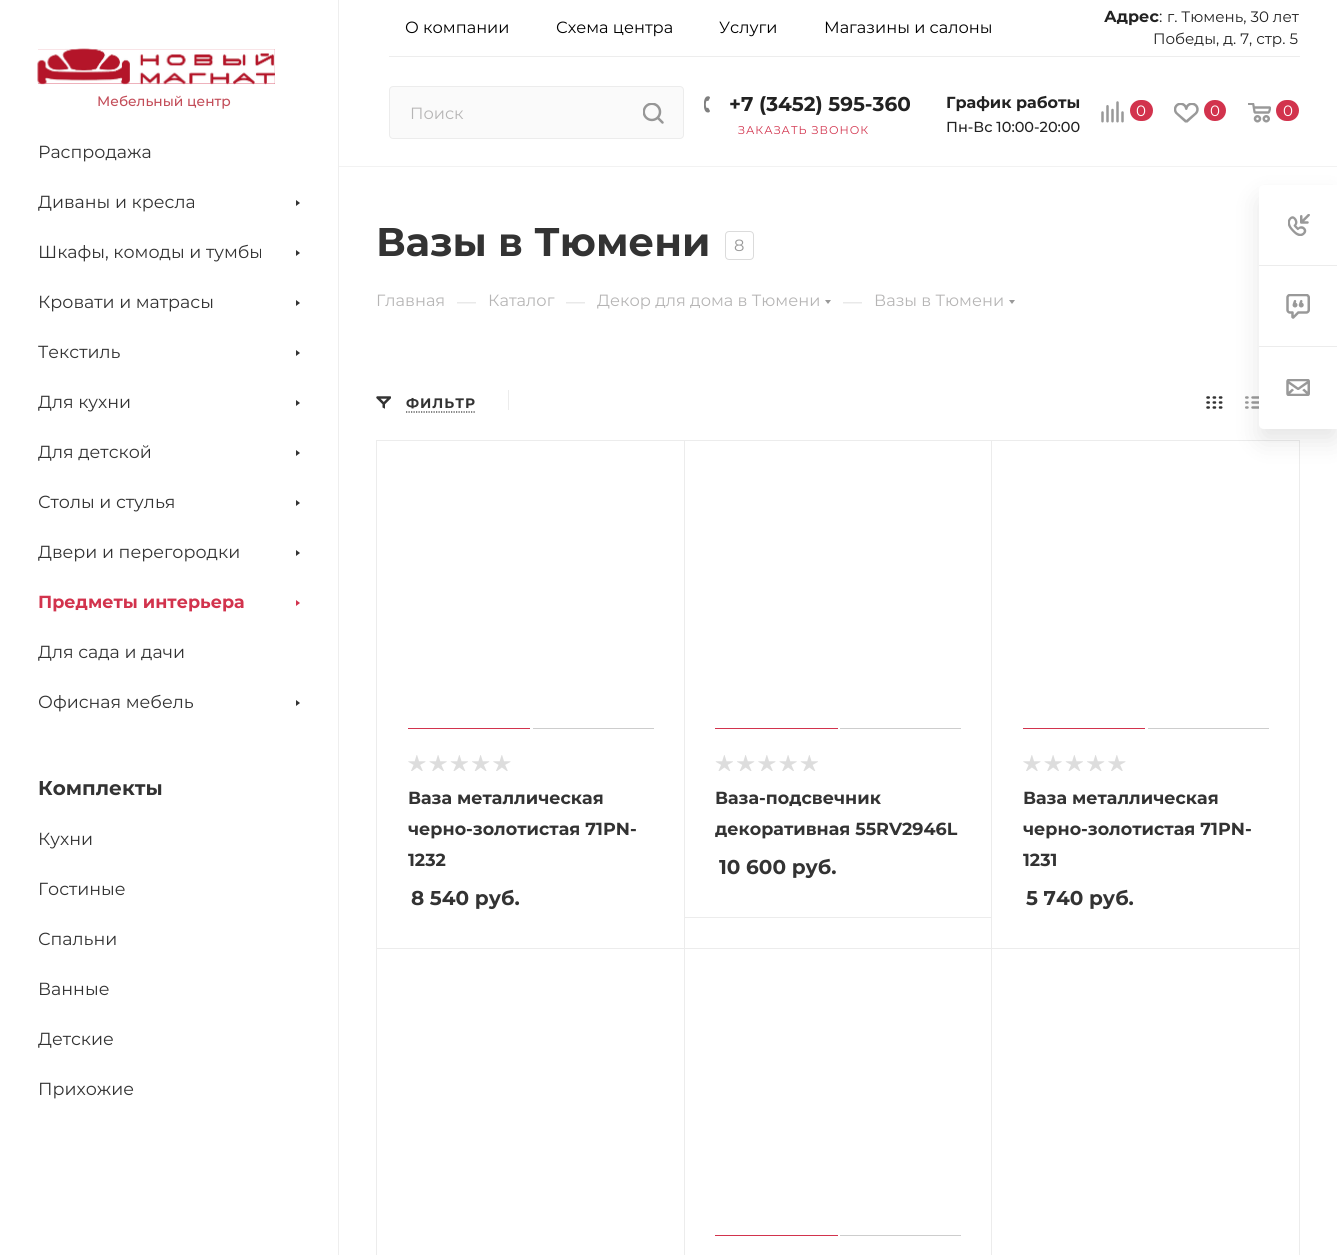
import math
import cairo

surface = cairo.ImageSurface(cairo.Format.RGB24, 1337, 1255)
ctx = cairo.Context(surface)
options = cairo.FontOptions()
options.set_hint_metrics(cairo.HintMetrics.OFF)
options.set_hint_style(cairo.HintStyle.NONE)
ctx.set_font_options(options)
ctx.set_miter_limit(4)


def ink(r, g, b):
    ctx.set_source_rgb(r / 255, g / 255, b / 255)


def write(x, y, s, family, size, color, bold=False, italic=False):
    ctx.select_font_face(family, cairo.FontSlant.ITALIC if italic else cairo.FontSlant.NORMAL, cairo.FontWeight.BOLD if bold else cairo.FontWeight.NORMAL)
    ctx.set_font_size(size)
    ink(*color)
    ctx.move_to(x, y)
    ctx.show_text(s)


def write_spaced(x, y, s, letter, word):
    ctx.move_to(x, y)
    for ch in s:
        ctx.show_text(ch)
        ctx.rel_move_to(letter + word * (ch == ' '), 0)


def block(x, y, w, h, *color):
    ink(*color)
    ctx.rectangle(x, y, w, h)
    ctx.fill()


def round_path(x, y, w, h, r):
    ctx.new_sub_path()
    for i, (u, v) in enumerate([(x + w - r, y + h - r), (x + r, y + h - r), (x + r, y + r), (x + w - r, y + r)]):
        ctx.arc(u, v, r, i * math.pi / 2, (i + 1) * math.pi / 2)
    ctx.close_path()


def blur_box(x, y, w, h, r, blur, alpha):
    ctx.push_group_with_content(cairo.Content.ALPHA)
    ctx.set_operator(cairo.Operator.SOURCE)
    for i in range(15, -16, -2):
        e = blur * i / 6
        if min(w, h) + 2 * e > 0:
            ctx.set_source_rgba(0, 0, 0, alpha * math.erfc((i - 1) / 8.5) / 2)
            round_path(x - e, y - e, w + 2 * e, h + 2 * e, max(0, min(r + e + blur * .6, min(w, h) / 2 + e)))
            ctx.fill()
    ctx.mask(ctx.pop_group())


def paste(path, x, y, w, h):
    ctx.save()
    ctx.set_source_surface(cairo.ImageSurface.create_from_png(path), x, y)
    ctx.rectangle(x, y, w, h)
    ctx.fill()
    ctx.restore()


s1 = dict(family="Montserrat", size=16.25, color=(0, 0, 0))
s2 = dict(family="Montserrat", size=16, color=(34, 34, 34), bold=True)
s3 = dict(family="Montserrat", size=16, color=(34, 34, 34))
s4 = dict(family="Montserrat", size=15.1, color=(34, 34, 34))
s5 = dict(family="Montserrat", size=16.25, color=(182, 181, 181))
s6 = dict(family="Montserrat", size=20, color=(34, 34, 34), bold=True)
s7 = dict(family="Montserrat Medium", size=14.5, color=(34, 34, 34))
s8 = dict(family="Montserrat", size=15, color=(255, 255, 255))
s9 = dict(family="Montserrat Medium", size=13.75, color=(195, 77, 89))
s10 = dict(family="Montserrat", size=17.5, color=(51, 51, 51))
s11 = dict(family="Montserrat", size=17.5, color=(210, 51, 77), bold=True)
s12 = dict(family="Montserrat", size=20, color=(51, 51, 51), bold=True)
s13 = dict(family="Montserrat", size=40, color=(51, 51, 51), bold=True)
s14 = dict(family="Montserrat", size=16.25, color=(153, 153, 153))
s15 = dict(family="Montserrat", size=19, color=(221, 221, 221))
s16 = dict(family="Montserrat", size=17.5, color=(51, 51, 51), bold=True)

ink(255, 255, 255)
ctx.paint()
write(405, 33, "О компании", **s1)
write(556, 33, "Схема центра", **s1)
write(719, 33, "Услуги", **s1)
write(824, 33, "Магазины и салоны", **s1)
write(1104, 22, "Адрес", **s2)
write(1159, 22, ":", **s3)
write(1167, 22, "г. Тюмень, 30 лет", **s4)
write(1153, 44, "Победы, д. 7, стр. 5", **s4)
block(389, 56, 911, 1, 237, 237, 237)
ink(250, 250, 250)
round_path(389.5, 86.5, 294, 52, 3.5)
ctx.fill_preserve()
ink(236, 236, 236)
ctx.set_line_width(1)
ctx.stroke()
write(410, 119, "Поиск", **s5)
paste("pic1.png", 643, 103, 21, 21)
paste("pic2.png", 704, 96, 6, 17)
write(729, 111, "+7 (3452) 595-360", **s6)
ctx.select_font_face("Montserrat")
ctx.set_font_size(11.25)
ink(210, 51, 77)
write_spaced(738, 134, "ЗАКАЗАТЬ ЗВОНОК", 1, 0)
write(946, 108, "График работы", **s2)
write(946, 132, "Пн-Вс 10:00-20:00", **s7)
paste("pic3.png", 1101, 101, 23, 22)
ink(210, 51, 77)
round_path(1130, 100, 23, 21, 10.5)
ctx.fill()
write(1136, 116, "0", **s8)
paste("pic4.png", 1174, 103, 25, 20)
ink(210, 51, 77)
round_path(1204, 100, 22, 21, 10.5)
ctx.fill()
write(1210, 116, "0", **s8)
paste("pic5.png", 1248, 103, 23, 20)
ink(210, 51, 77)
round_path(1276, 100, 23, 21, 10.5)
ctx.fill()
write(1283, 116, "0", **s8)
block(339, 166, 998, 1, 242, 242, 242)
block(338, 0, 1, 1255, 238, 238, 238)
block(38, 49, 237, 35, 210, 46, 72)
paste("pic6.png", 37, 48, 238, 37)
write(97, 106, "Мебельный центр", **s9)
write(38, 158, "Распродажа", **s10)
write(38, 208, "Диваны и кресла", **s10)
ctx.set_fill_rule(cairo.FillRule.EVEN_ODD)
ctx.new_path()
ctx.move_to(296, 206)
ctx.line_to(296, 200)
ctx.line_to(300, 203)
ctx.close_path()
ctx.fill()
write(38, 258, "Шкафы, комоды и тумбы", **s10)
ctx.new_path()
ctx.move_to(296, 256)
ctx.line_to(296, 250)
ctx.line_to(300, 253)
ctx.close_path()
ctx.fill()
write(38, 308, "Кровати и матрасы", **s10)
ctx.new_path()
ctx.move_to(296, 306)
ctx.line_to(296, 300)
ctx.line_to(300, 303)
ctx.close_path()
ctx.fill()
write(38, 358, "Текстиль", **s10)
ctx.new_path()
ctx.move_to(296, 356)
ctx.line_to(296, 350)
ctx.line_to(300, 353)
ctx.close_path()
ctx.fill()
write(38, 408, "Для кухни", **s10)
ctx.new_path()
ctx.move_to(296, 406)
ctx.line_to(296, 400)
ctx.line_to(300, 403)
ctx.close_path()
ctx.fill()
write(38, 458, "Для детской", **s10)
ctx.new_path()
ctx.move_to(296, 456)
ctx.line_to(296, 450)
ctx.line_to(300, 453)
ctx.close_path()
ctx.fill()
write(38, 508, "Столы и стулья", **s10)
ctx.new_path()
ctx.move_to(296, 506)
ctx.line_to(296, 500)
ctx.line_to(300, 503)
ctx.close_path()
ctx.fill()
write(38, 558, "Двери и перегородки", **s10)
ctx.new_path()
ctx.move_to(296, 556)
ctx.line_to(296, 550)
ctx.line_to(300, 553)
ctx.close_path()
ctx.fill()
write(38, 608, "Предметы интерьера", **s11)
ctx.new_path()
ctx.move_to(296, 606)
ctx.line_to(296, 600)
ctx.line_to(300, 603)
ctx.close_path()
ctx.fill()
write(38, 658, "Для сада и дачи", **s10)
write(38, 708, "Офисная мебель", **s10)
ctx.new_path()
ctx.move_to(296, 706)
ctx.line_to(296, 700)
ctx.line_to(300, 703)
ctx.close_path()
ctx.fill()
write(38, 795, "Комплекты", **s12)
write(38, 845, "Кухни", **s10)
write(38, 895, "Гостиные", **s10)
write(38, 945, "Спальни", **s10)
write(38, 995, "Ванные", **s10)
write(38, 1045, "Детские", **s10)
write(38, 1095, "Прихожие", **s10)
write(376, 256, "Вазы в Тюмени", **s13)
round_path(725.5, 231.5, 28, 28, 3.5)
ink(219, 219, 219)
ctx.stroke()
write(734, 251, "8", **s14)
write(376, 306, "Главная", **s5)
write(457, 308, "—", **s15)
write(488, 306, "Каталог", **s5)
write(566, 308, "—", **s15)
write(597, 306, "Декор для дома в Тюмени", **s5)
ink(153, 153, 153)
ctx.new_path()
ctx.move_to(825, 300)
ctx.line_to(831, 300)
ctx.line_to(828, 304)
ctx.close_path()
ctx.fill()
write(843, 308, "—", **s15)
write(874, 306, "Вазы в Тюмени", **s5)
ink(153, 153, 153)
ctx.new_path()
ctx.move_to(1009, 300)
ctx.line_to(1015, 300)
ctx.line_to(1012, 304)
ctx.close_path()
ctx.fill()
paste("pic7.png", 376, 396, 15, 13)
ctx.select_font_face("Montserrat", cairo.FontSlant.NORMAL, cairo.FontWeight.BOLD)
ctx.set_font_size(13.75)
ink(51, 51, 51)
write_spaced(406, 408, "ФИЛЬТР", 1, 0)
ctx.new_path()
ctx.move_to(406, 412)
ctx.line_to(476, 412)
ctx.set_line_width(1.2)
ctx.set_dash([1.25, 1.25])
ctx.stroke()
block(508, 390, 1, 20, 236, 236, 236)
paste("pic8.png", 1206, 396, 17, 13)
paste("pic9.png", 1245, 396, 14, 13)
ctx.rectangle(376.5, 440.5, 308, 508)
ctx.set_line_width(1)
ctx.set_dash([])
ctx.stroke()
block(408, 728, 122, 1, 210, 51, 77)
block(533, 728, 121, 1, 205, 205, 205)
paste("pic10.png", 408, 755, 18, 16)
paste("pic11.png", 429, 755, 18, 16)
paste("pic12.png", 450, 755, 18, 16)
paste("pic13.png", 472, 755, 18, 16)
paste("pic10.png", 493, 755, 18, 16)
write(408, 804, "Ваза металлическая", **s16)
write(408, 835, "черно-золотистая 71PN-", **s16)
ctx.save()
ctx.set_fill_rule(cairo.FillRule.WINDING)
ctx.rectangle(408, 781, 246, 94)
ctx.clip()
write(408, 866, "1232", **s16)
ctx.restore()
write(411, 905, "8 540 руб.", **s12)
ctx.rectangle(684.5, 440.5, 308, 477)
ink(236, 236, 236)
ctx.stroke()
block(715, 728, 123, 1, 210, 51, 77)
block(840, 728, 121, 1, 205, 205, 205)
paste("pic12.png", 715, 755, 18, 16)
paste("pic13.png", 737, 755, 18, 16)
paste("pic10.png", 758, 755, 18, 16)
paste("pic11.png", 779, 755, 18, 16)
paste("pic12.png", 800, 755, 18, 16)
write(715, 804, "Ваза-подсвечник", **s16)
write(715, 835, "декоративная 55RV2946L", **s16)
write(719, 874, "10 600 руб.", **s12)
block(992, 441, 1, 477, 255, 255, 255)
ctx.rectangle(991.5, 440.5, 308, 508)
ink(236, 236, 236)
ctx.stroke()
block(1023, 728, 122, 1, 210, 51, 77)
block(1148, 728, 121, 1, 205, 205, 205)
paste("pic10.png", 1023, 755, 18, 16)
paste("pic11.png", 1044, 755, 18, 16)
paste("pic12.png", 1065, 755, 18, 16)
paste("pic13.png", 1087, 755, 18, 16)
paste("pic10.png", 1108, 755, 18, 16)
write(1023, 804, "Ваза металлическая", **s16)
write(1023, 835, "черно-золотистая 71PN-", **s16)
ctx.save()
ctx.set_fill_rule(cairo.FillRule.WINDING)
ctx.rectangle(1023, 781, 246, 94)
ctx.clip()
write(1023, 866, "1231", **s16)
ctx.restore()
write(1026, 905, "5 740 руб.", **s12)
ctx.rectangle(376.5, 948.5, 308, 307)
ink(236, 236, 236)
ctx.stroke()
ctx.rectangle(684.5, 948.5, 308, 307)
ctx.stroke()
block(715, 1235, 123, 1, 210, 51, 77)
block(840, 1235, 121, 1, 205, 205, 205)
block(992, 949, 1, 306, 255, 255, 255)
ctx.rectangle(991.5, 948.5, 308, 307)
ink(236, 236, 236)
ctx.stroke()
ink(0, 0, 0)
blur_box(1259, 198, 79, 243, 5, 12.5, 0.1)
ink(255, 255, 255)
ctx.new_path()
ctx.move_to(1264, 185)
ctx.line_to(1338, 185)
ctx.line_to(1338, 429)
ctx.line_to(1264, 429)
ctx.curve_to(1261, 429, 1259, 427, 1259, 424)
ctx.line_to(1259, 190)
ctx.curve_to(1259, 187, 1261, 185, 1264, 185)
ctx.close_path()
ctx.fill()
block(1259, 265, 78, 1, 236, 236, 236)
paste("pic14.png", 1288, 214, 22, 22)
block(1259, 346, 78, 1, 236, 236, 236)
paste("pic15.png", 1286, 294, 24, 25)
paste("pic16.png", 1286, 379, 24, 17)
surface.write_to_png("screenshot.png")
